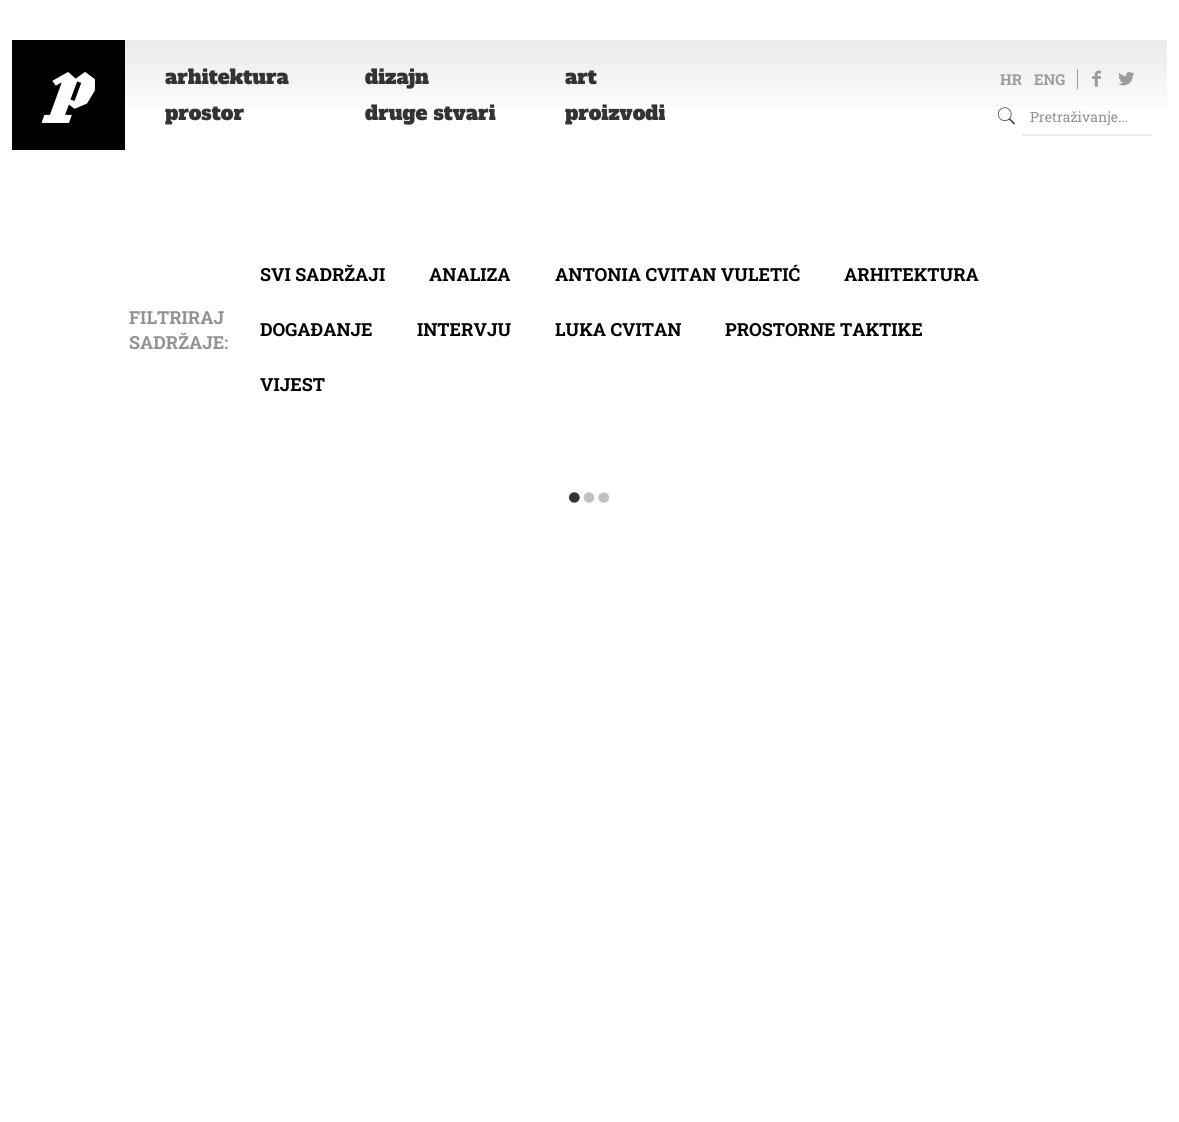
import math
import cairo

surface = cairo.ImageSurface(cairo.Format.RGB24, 1179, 1122)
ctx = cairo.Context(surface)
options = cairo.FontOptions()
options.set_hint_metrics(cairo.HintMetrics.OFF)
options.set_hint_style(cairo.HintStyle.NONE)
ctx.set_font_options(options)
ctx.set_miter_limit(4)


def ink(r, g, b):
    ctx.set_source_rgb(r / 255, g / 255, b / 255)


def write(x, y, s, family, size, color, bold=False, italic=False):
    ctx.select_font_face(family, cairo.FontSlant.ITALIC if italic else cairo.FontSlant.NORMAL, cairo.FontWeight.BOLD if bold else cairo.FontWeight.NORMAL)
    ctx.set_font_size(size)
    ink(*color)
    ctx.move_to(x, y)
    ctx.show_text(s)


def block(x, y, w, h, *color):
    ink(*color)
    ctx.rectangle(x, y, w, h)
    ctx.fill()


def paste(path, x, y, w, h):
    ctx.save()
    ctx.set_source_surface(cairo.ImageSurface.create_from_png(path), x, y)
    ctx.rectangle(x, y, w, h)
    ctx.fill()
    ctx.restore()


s1 = dict(family="Alfa Slab One", size=20, color=(51, 51, 51))
s2 = dict(family="Roboto Slab", size=15, color=(155, 157, 158), bold=True)
s3 = dict(family="Roboto Slab", size=14, color=(146, 146, 146))
s4 = dict(family="Roboto Slab", size=18, color=(146, 146, 146), bold=True)
s5 = dict(family="Roboto Slab", size=18, color=(0, 0, 0), bold=True)

ink(255, 255, 255)
ctx.paint()
paste("pic1.png", 125, 40, 1042, 65)
block(12, 40, 113, 110, 0, 0, 0)
paste("pic2.png", 42, 72, 53, 51)
write(165, 84, "arhitektura", **s1)
write(365, 84, "dizajn", **s1)
write(565, 84, "art", **s1)
write(165, 120, "prostor", **s1)
write(365, 120, "druge stvari", **s1)
write(565, 120, "proizvodi", **s1)
write(1000, 85, "HR", **s2)
write(1034, 85, "ENG", **s2)
block(1077, 69, 1, 20, 155, 157, 158)
paste("pic3.png", 1092, 70, 9, 17)
paste("pic4.png", 1118, 72, 17, 14)
paste("pic5.png", 997, 107, 19, 18)
block(1022, 134, 130, 2, 235, 235, 235)
write(1030, 122, "Pretraživanje...", **s3)
write(129, 324, "FILTRIRAJ", **s4)
write(129, 349, "SADRŽAJE:", **s4)
write(260, 281, "SVI SADRŽAJI", **s5)
write(429, 281, "ANALIZA", **s5)
write(555, 281, "ANTONIA CVITAN VULETIĆ", **s5)
write(844, 281, "ARHITEKTURA", **s5)
write(260, 336, "DOGAĐANJE", **s5)
write(417, 336, "INTERVJU", **s5)
write(555, 336, "LUKA CVITAN", **s5)
write(725, 336, "PROSTORNE TAKTIKE", **s5)
write(260, 391, "VIJEST", **s5)
paste("pic6.png", 569, 492, 40, 11)
surface.write_to_png("screenshot.png")
